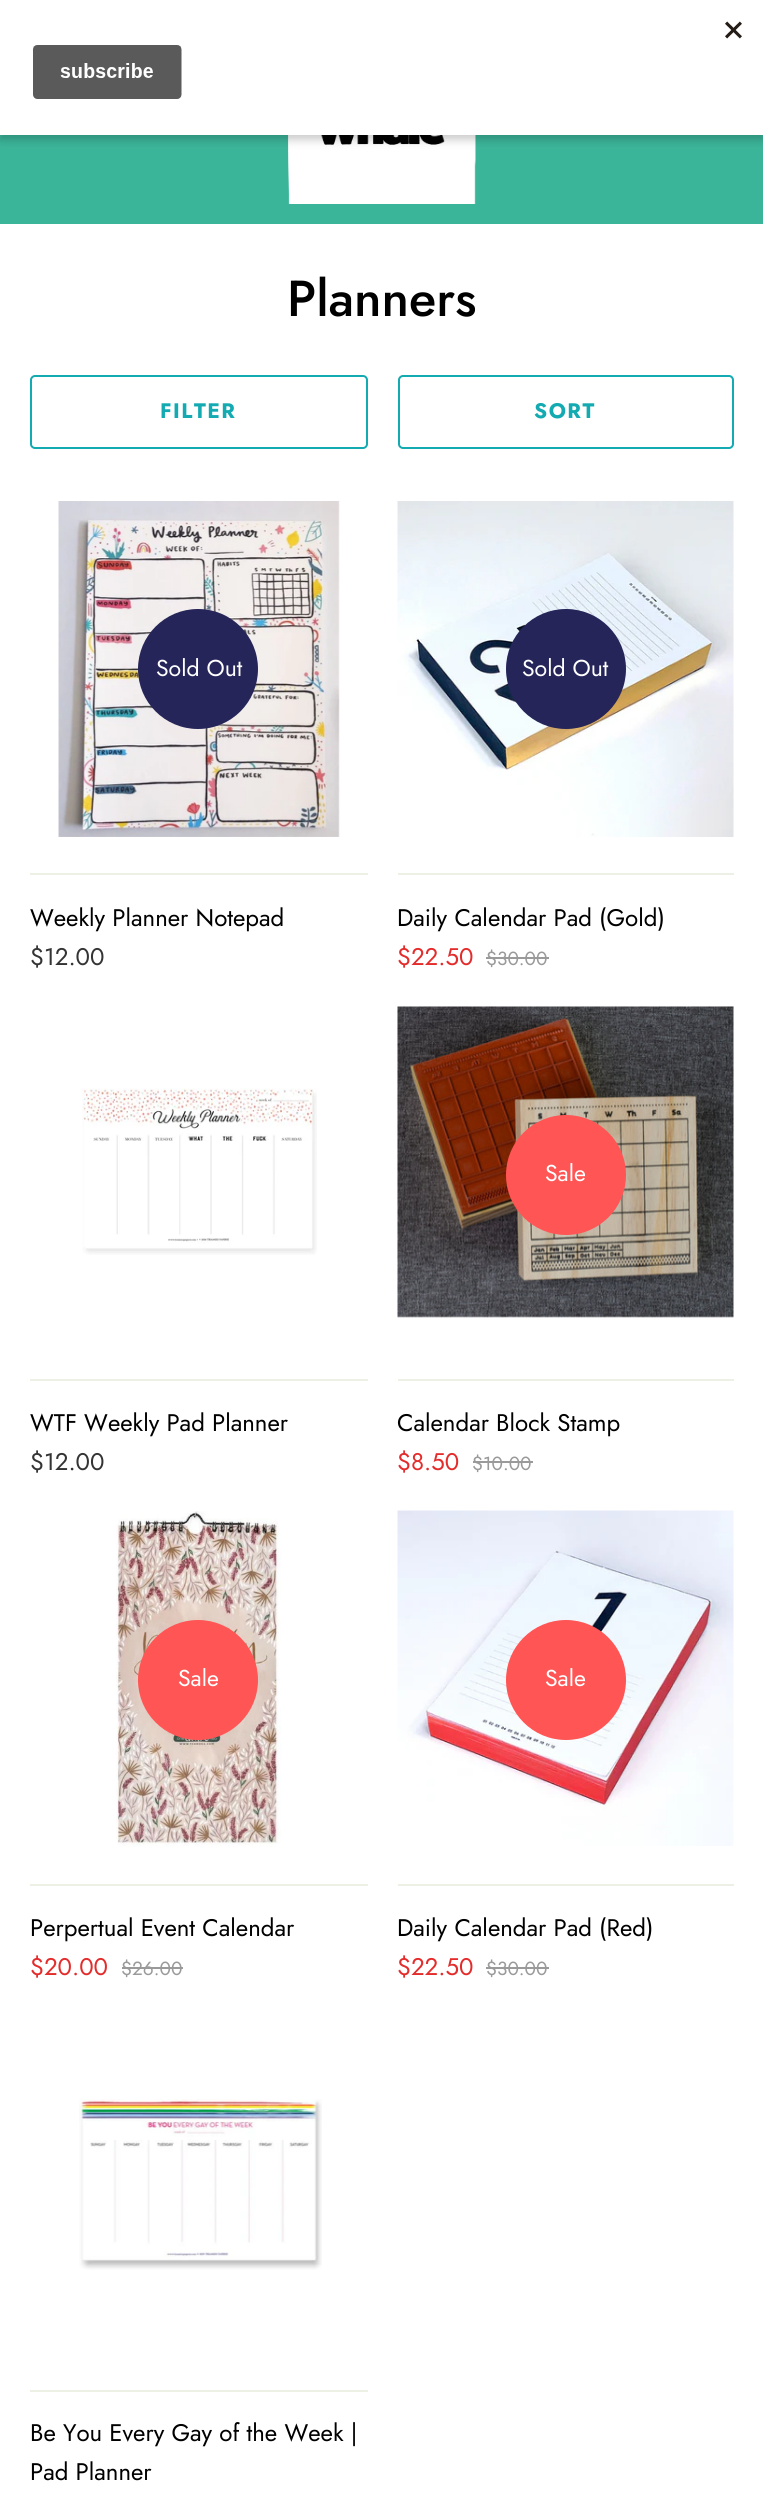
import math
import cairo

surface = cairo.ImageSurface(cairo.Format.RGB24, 763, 2495)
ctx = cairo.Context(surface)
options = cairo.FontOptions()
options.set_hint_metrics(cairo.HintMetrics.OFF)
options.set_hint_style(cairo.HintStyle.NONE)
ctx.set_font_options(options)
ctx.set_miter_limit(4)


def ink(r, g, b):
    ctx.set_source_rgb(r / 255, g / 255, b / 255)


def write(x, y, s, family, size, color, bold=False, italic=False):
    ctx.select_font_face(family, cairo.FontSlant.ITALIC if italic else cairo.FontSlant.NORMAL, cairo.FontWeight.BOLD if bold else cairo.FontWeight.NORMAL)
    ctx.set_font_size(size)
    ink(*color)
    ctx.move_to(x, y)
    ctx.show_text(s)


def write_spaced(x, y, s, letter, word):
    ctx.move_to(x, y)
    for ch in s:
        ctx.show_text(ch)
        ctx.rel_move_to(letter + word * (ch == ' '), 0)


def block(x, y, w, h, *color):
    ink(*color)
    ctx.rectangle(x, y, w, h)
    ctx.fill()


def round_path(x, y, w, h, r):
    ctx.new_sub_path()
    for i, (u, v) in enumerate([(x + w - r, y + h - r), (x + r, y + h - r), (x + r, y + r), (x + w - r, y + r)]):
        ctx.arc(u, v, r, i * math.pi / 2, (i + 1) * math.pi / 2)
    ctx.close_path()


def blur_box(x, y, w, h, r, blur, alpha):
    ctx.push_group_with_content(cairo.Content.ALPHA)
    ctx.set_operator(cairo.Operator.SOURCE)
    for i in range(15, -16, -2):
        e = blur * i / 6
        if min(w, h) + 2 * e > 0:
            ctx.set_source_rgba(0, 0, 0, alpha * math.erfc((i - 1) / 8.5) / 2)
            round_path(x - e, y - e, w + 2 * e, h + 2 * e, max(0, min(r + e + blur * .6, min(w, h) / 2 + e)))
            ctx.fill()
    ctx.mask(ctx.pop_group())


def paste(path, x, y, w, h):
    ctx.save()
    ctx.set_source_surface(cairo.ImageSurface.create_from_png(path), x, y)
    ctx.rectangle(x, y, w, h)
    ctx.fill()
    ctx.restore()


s1 = dict(family="Jost Medium", size=50.5, color=(0, 0, 0))
s2 = dict(family="Jost", size=23, color=(255, 255, 255))
s3 = dict(family="Jost", size=24, color=(0, 0, 0))
s4 = dict(family="Jost", size=24, color=(52, 52, 52))
s5 = dict(family="Jost", size=24, color=(227, 44, 43))
s6 = dict(family="Jost", size=19, color=(154, 154, 154))

ink(255, 255, 255)
ctx.paint()
block(0, 135, 763, 89, 59, 181, 153)
paste("pic2.png", 288, 135, 188, 69)
ink(0, 0, 0)
blur_box(0, 5, 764, 135, 0, 4.5, 0.2)
block(0, 0, 763, 135, 255, 255, 255)
paste("pic1.png", 32, 21, 710, 78)
write(287, 316, "Planners", **s1)
round_path(31, 376, 336, 72, 4)
ink(20, 170, 177)
ctx.stroke()
ctx.select_font_face("Jost", cairo.FontSlant.NORMAL, cairo.FontWeight.BOLD)
ctx.set_font_size(21)
write_spaced(160, 418, "FILTER", 1.5, 0)
round_path(399, 376, 334, 72, 4)
ctx.stroke()
write_spaced(534, 418, "SORT", 1.5, 0)
paste("pic3.png", 58, 501, 282, 336)
ink(37, 37, 89)
ctx.arc(198, 669, 60, 0, 2 * math.pi)
ctx.fill()
write(156, 676, "Sold Out", **s2)
block(30, 873, 338, 2, 237, 240, 228)
write(30, 926, "Weekly Planner Notepad", **s3)
write(30, 965, "$12.00", **s4)
paste("pic4.png", 397, 501, 337, 336)
ink(37, 37, 89)
ctx.arc(566, 669, 60, 0, 2 * math.pi)
ctx.fill()
write(522, 676, "Sold Out", **s2)
block(398, 873, 336, 2, 237, 240, 228)
write(397, 926, "Daily Calendar Pad (Gold)", **s3)
write(397, 965, "$22.50", **s5)
write(486, 965, "$30.00", **s6)
block(486, 957, 63, 2, 154, 154, 154)
paste("pic5.png", 82, 1088, 235, 167)
block(30, 1379, 338, 2, 237, 240, 228)
write(30, 1431, "WTF Weekly Pad Planner", **s3)
write(30, 1470, "$12.00", **s4)
paste("pic6.png", 397, 1006, 337, 312)
ink(255, 85, 85)
ctx.arc(566, 1175, 60, 0, 2 * math.pi)
ctx.fill()
write(545, 1181, "Sale", **s2)
block(398, 1379, 336, 2, 237, 240, 228)
write(397, 1431, "Calendar Block Stamp", **s3)
write(397, 1470, "$8.50", **s5)
write(472, 1470, "$10.00", **s6)
block(473, 1461, 60, 2, 154, 154, 154)
paste("pic7.png", 116, 1511, 165, 336)
ink(255, 85, 85)
ctx.arc(198, 1680, 60, 0, 2 * math.pi)
ctx.fill()
write(178, 1686, "Sale", **s2)
block(30, 1884, 338, 2, 237, 240, 228)
write(30, 1936, "Perpertual Event Calendar", **s3)
write(30, 1975, "$20.00", **s5)
write(121, 1975, "$26.00", **s6)
block(122, 1967, 61, 2, 154, 154, 154)
paste("pic8.png", 397, 1510, 337, 336)
ink(255, 85, 85)
ctx.arc(566, 1680, 60, 0, 2 * math.pi)
ctx.fill()
write(545, 1686, "Sale", **s2)
block(398, 1884, 336, 2, 237, 240, 228)
write(397, 1936, "Daily Calendar Pad (Red)", **s3)
write(397, 1975, "$22.50", **s5)
write(486, 1975, "$30.00", **s6)
block(486, 1967, 63, 2, 154, 154, 154)
paste("pic9.png", 79, 2099, 243, 171)
block(30, 2390, 338, 2, 237, 240, 228)
write(30, 2441, "Be You Every Gay of the Week |", **s3)
write(30, 2480, "Pad Planner", **s3)
surface.write_to_png("screenshot.png")
